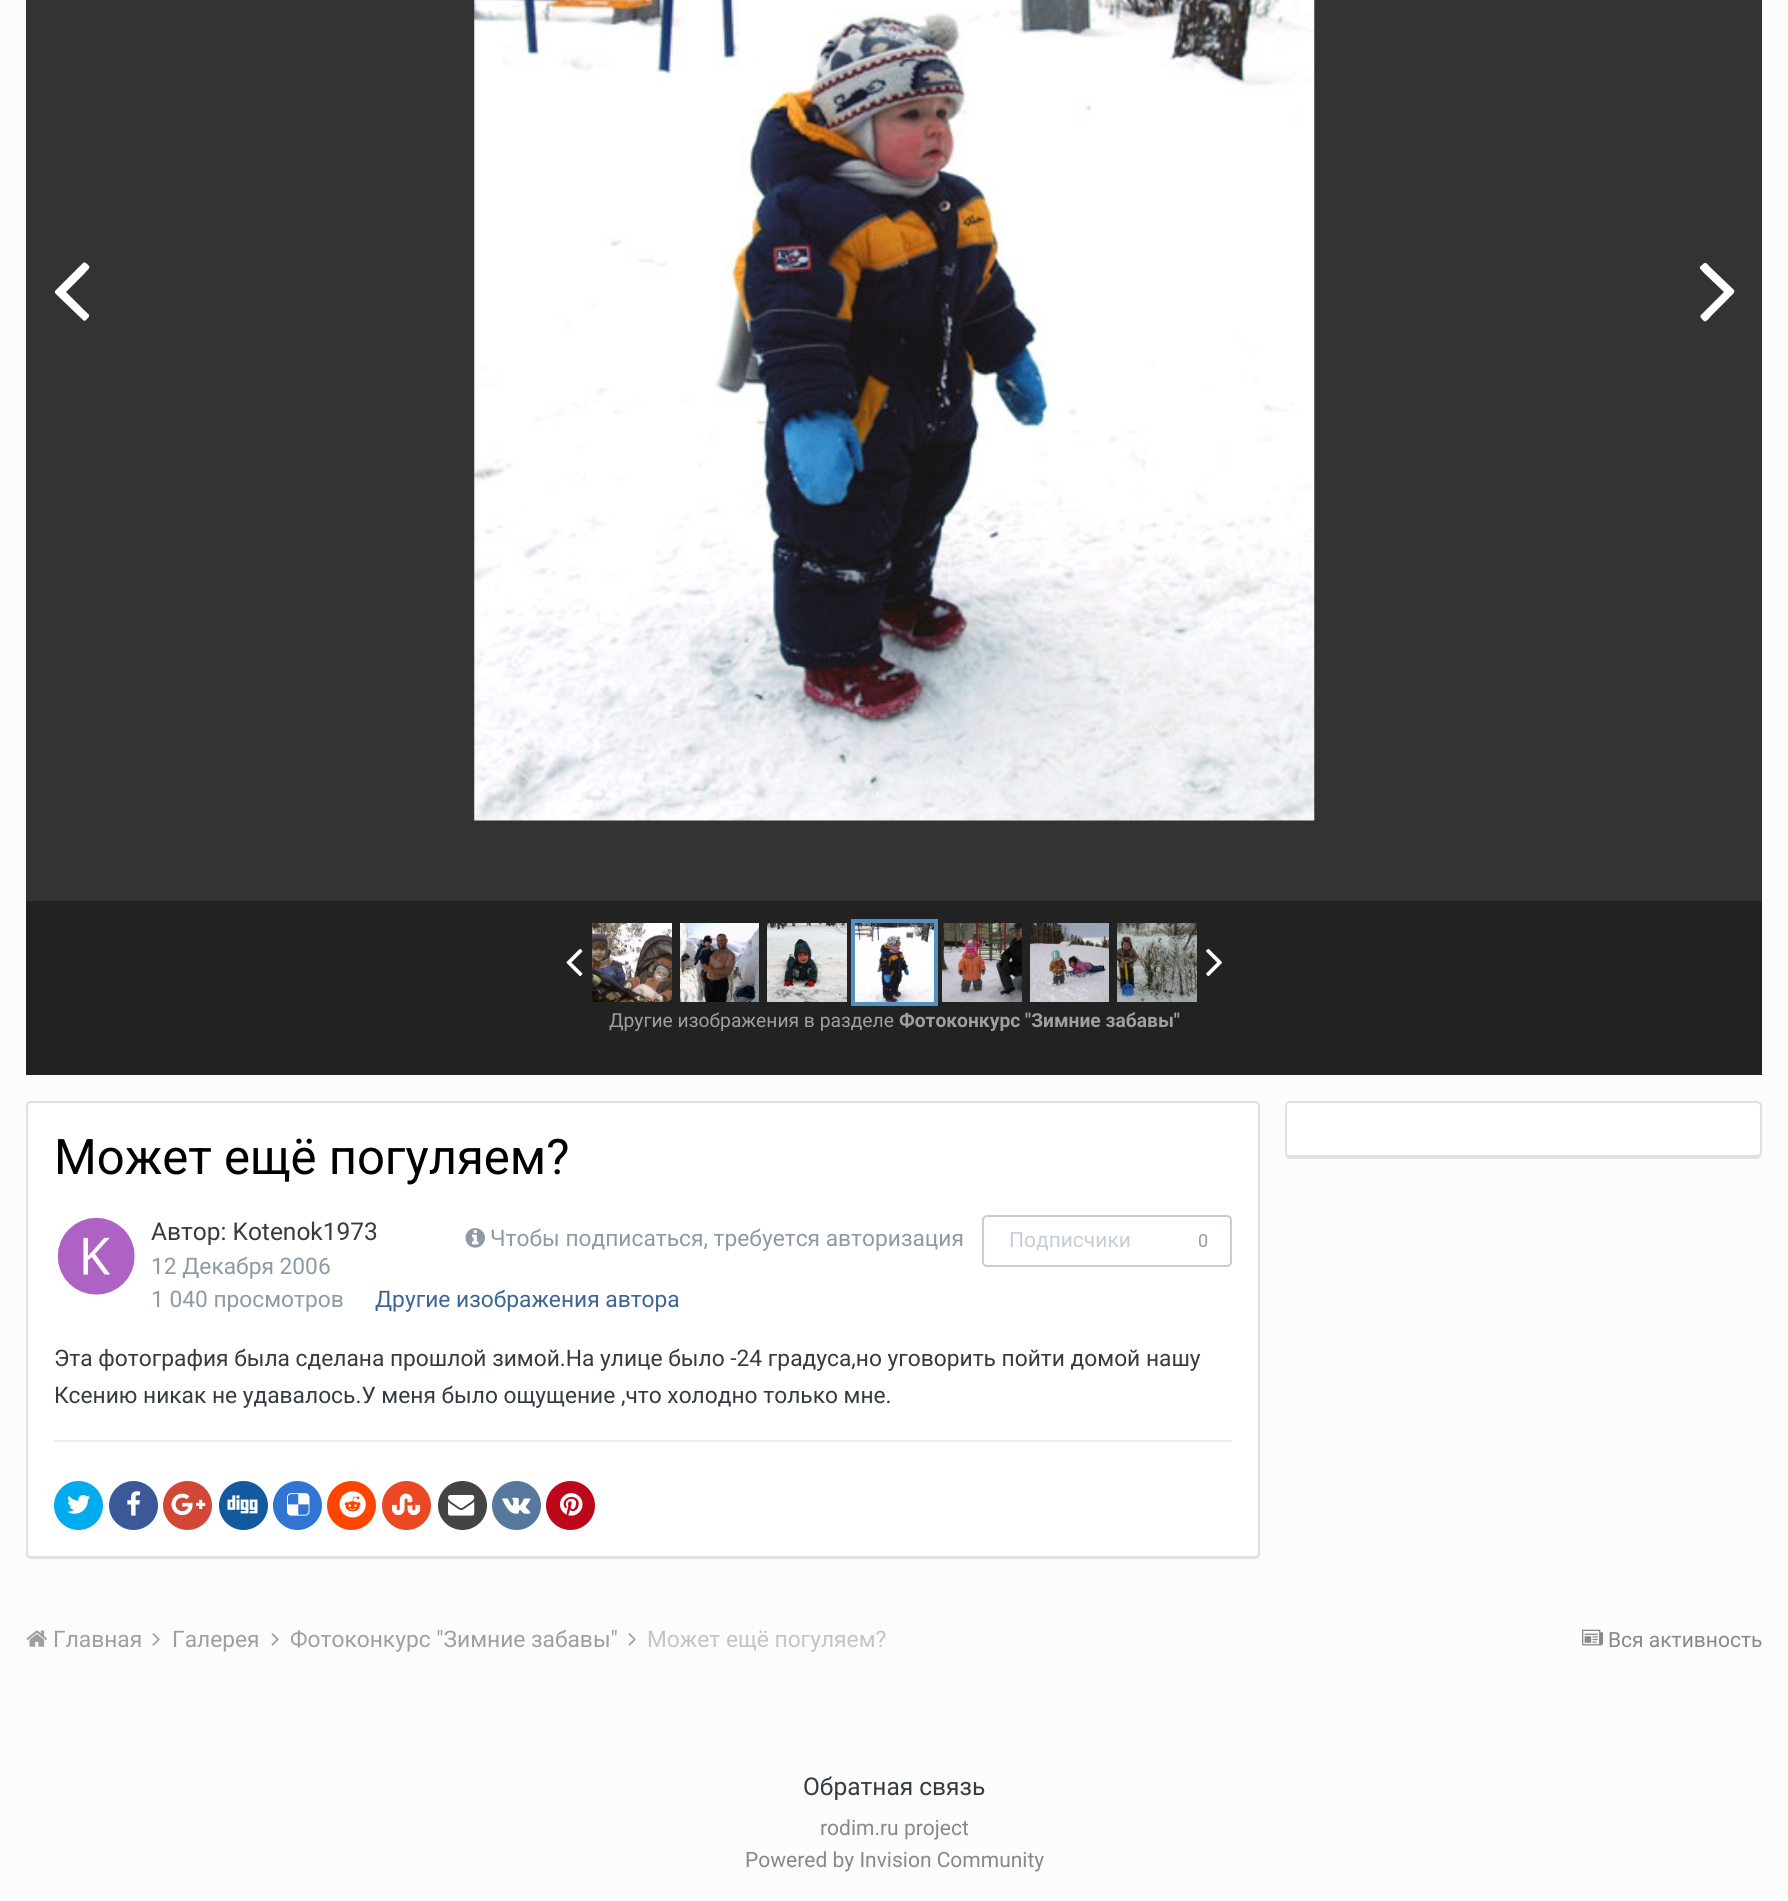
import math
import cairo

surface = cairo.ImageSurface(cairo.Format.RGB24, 1788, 1901)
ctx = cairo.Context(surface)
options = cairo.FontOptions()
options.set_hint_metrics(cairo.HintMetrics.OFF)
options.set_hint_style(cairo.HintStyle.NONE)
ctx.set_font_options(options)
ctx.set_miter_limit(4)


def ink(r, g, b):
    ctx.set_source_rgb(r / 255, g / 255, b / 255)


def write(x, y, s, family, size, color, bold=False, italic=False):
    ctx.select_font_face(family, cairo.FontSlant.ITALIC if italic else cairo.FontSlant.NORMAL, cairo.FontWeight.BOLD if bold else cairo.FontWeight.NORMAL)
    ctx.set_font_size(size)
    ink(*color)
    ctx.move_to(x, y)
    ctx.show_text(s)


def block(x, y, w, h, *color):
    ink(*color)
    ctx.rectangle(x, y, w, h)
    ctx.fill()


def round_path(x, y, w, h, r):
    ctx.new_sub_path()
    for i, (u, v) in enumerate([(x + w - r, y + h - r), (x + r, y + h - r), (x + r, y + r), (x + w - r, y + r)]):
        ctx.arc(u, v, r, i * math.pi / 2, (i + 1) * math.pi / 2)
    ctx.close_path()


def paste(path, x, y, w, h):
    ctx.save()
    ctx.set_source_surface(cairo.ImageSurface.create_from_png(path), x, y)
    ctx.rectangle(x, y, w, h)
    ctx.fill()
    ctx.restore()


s1 = dict(family="Roboto", size=19.25, color=(159, 159, 159))
s2 = dict(family="Roboto", size=19.25, color=(159, 159, 159), bold=True)
s3 = dict(family="Roboto", size=49, color=(0, 0, 0))
s4 = dict(family="Roboto", size=24.5, color=(53, 60, 65))
s5 = dict(family="Roboto", size=22.75, color=(141, 154, 166))
s6 = dict(family="Roboto", size=21, color=(198, 205, 211))
s7 = dict(family="Roboto", size=18, color=(153, 153, 153))
s8 = dict(family="Roboto", size=22.75, color=(61, 101, 148))
s9 = dict(family="Roboto", size=22.75, color=(53, 60, 65))
s10 = dict(family="Roboto", size=22.75, color=(159, 159, 159))
s11 = dict(family="Roboto", size=22.75, color=(196, 196, 196))
s12 = dict(family="Roboto", size=21, color=(133, 137, 140))

ink(252, 252, 252)
ctx.paint()
block(26, 0, 1736, 901, 51, 51, 51)
paste("pic1.png", 474, 0, 841, 821)
ink(255, 255, 255)
ctx.new_path()
ctx.move_to(89, 266)
ctx.curve_to(91, 268, 85, 272, 85, 273)
ctx.line_to(66, 292)
ctx.line_to(85, 311)
ctx.curve_to(89, 315, 91, 315, 87, 319)
ctx.curve_to(86, 320, 85, 322, 83, 320)
ctx.line_to(60, 298)
ctx.curve_to(53, 291, 53, 293, 60, 286)
ctx.line_to(83, 263)
ctx.curve_to(85, 261, 88, 265, 89, 266)
ctx.close_path()
ctx.fill()
ctx.new_path()
ctx.move_to(1734, 290)
ctx.curve_to(1736, 293, 1729, 297, 1729, 298)
ctx.line_to(1711, 316)
ctx.curve_to(1711, 316, 1706, 323, 1704, 321)
ctx.curve_to(1703, 320, 1699, 317, 1701, 315)
ctx.line_to(1724, 292)
ctx.line_to(1704, 273)
ctx.curve_to(1700, 268, 1698, 268, 1702, 265)
ctx.curve_to(1706, 261, 1706, 263, 1711, 268)
ctx.close_path()
ctx.fill()
block(26, 901, 1736, 174, 34, 34, 34)
paste("pic2.png", 566, 948, 17, 29)
paste("pic3.png", 592, 923, 80, 79)
paste("pic4.png", 680, 923, 79, 79)
paste("pic5.png", 767, 923, 80, 79)
paste("pic6.png", 855, 923, 79, 79)
ctx.rectangle(853, 921, 83, 83)
ink(84, 144, 192)
ctx.set_line_width(4)
ctx.stroke()
paste("pic7.png", 942, 923, 80, 79)
paste("pic8.png", 1030, 923, 79, 79)
paste("pic9.png", 1117, 923, 80, 79)
paste("pic10.png", 1206, 948, 16, 29)
write(609, 1027, "Другие изображения в разделе", **s1)
write(899, 1027, "Фотоконкурс \"Зимние забавы\"", **s2)
ink(227, 227, 227)
ctx.new_path()
ctx.move_to(1285, 1154)
ctx.curve_to(1285, 1157, 1287, 1159, 1290, 1159)
ctx.line_to(1757, 1159)
ctx.curve_to(1760, 1159, 1762, 1156, 1762, 1153)
ctx.curve_to(1761, 1155, 1759, 1157, 1757, 1157)
ctx.line_to(1290, 1157)
ctx.curve_to(1288, 1157, 1286, 1156, 1285, 1154)
ctx.close_path()
ctx.fill()
ink(255, 255, 255)
round_path(1286, 1102, 475, 54, 4)
ctx.fill_preserve()
ink(224, 224, 224)
ctx.set_line_width(2)
ctx.stroke()
ink(227, 227, 227)
ctx.new_path()
ctx.move_to(26, 1106)
ctx.line_to(26, 1554)
ctx.curve_to(26, 1557, 28, 1559, 31, 1559)
ctx.line_to(1255, 1559)
ctx.curve_to(1258, 1559, 1260, 1557, 1260, 1554)
ctx.line_to(1260, 1552)
ctx.curve_to(1260, 1555, 1258, 1558, 1255, 1558)
ctx.line_to(32, 1558)
ctx.curve_to(29, 1558, 26, 1555, 26, 1552)
ctx.close_path()
ctx.fill()
ink(255, 255, 255)
round_path(27, 1102, 1232, 455, 4)
ctx.fill_preserve()
ink(224, 224, 224)
ctx.stroke()
write(54, 1174, "Может ещё погуляем?", **s3)
paste("pic11.png", 57, 1217, 78, 78)
write(151, 1240, "Автор: Kotenok1973", **s4)
paste("pic12.png", 465, 1228, 20, 20)
write(490, 1246, "Чтобы подписаться, требуется авторизация", **s5)
round_path(983, 1216, 248, 50, 4)
ink(198, 205, 211)
ctx.stroke()
write(1009, 1247, "Подписчики", **s6)
write(1198, 1247, "0", **s7)
write(151, 1274, "12 Декабря 2006", **s5)
write(151, 1307, "1 040 просмотров", **s5)
write(375, 1307, "Другие изображения автора", **s8)
write(54, 1366, "Эта фотография была сделана прошлой зимой.На улице было -24 градуса,но уговорить пойти домой нашу", **s9)
write(54, 1403, "Ксению никак не удавалось.У меня было ощущение ,что холодно только мне.", **s9)
block(54, 1440, 1178, 2, 236, 236, 236)
ink(0, 172, 237)
ctx.new_path()
ctx.arc(78.5, 1505.5, 24.5, 0, 2 * math.pi)
ctx.fill()
paste("pic13.png", 67, 1495, 24, 19)
ink(59, 89, 152)
ctx.arc(133.5, 1505.5, 24.5, 0, 2 * math.pi)
ctx.fill()
paste("pic14.png", 127, 1491, 14, 25)
ink(209, 72, 54)
ctx.arc(187.5, 1505.5, 24.5, 0, 2 * math.pi)
ctx.fill()
paste("pic15.png", 171, 1493, 35, 23)
ink(20, 88, 158)
ctx.arc(243.5, 1505.5, 24.5, 0, 2 * math.pi)
ctx.fill()
paste("pic16.png", 227, 1495, 31, 19)
ink(50, 116, 209)
ctx.arc(297.5, 1505.5, 24.5, 0, 2 * math.pi)
ctx.fill()
paste("pic17.png", 287, 1493, 23, 23)
ink(255, 69, 0)
ctx.arc(351.5, 1505.5, 24.5, 0, 2 * math.pi)
ctx.fill()
paste("pic18.png", 339, 1491, 27, 27)
ink(235, 73, 36)
ctx.arc(406.5, 1505.5, 24.5, 0, 2 * math.pi)
ctx.fill()
paste("pic19.png", 392, 1493, 29, 23)
ink(68, 68, 68)
ctx.arc(462.5, 1505.5, 24.5, 0, 2 * math.pi)
ctx.fill()
paste("pic20.png", 448, 1495, 27, 21)
ink(86, 120, 156)
ctx.arc(516.5, 1505.5, 24.5, 0, 2 * math.pi)
ctx.fill()
paste("pic21.png", 502, 1497, 29, 17)
ink(189, 8, 28)
ctx.arc(570.5, 1505.5, 24.5, 0, 2 * math.pi)
ctx.fill()
paste("pic22.png", 560, 1493, 23, 23)
paste("pic23.png", 26, 1630, 21, 17)
write(53, 1647, "Главная", **s10)
paste("pic24.png", 152, 1633, 8, 13)
write(172, 1647, "Галерея", **s10)
paste("pic24.png", 271, 1633, 8, 13)
ctx.save()
ctx.rectangle(291, 1628, 351, 26)
ctx.clip()
write(290, 1647, "Фотоконкурс \"Зимние забавы\"", **s10)
ctx.restore()
paste("pic24.png", 628, 1633, 8, 13)
write(647, 1647, "Может ещё погуляем?", **s11)
paste("pic25.png", 1582, 1629, 21, 17)
write(1608, 1647, "Вся активность", **s12)
write(803, 1795, "Обратная связь", **s4)
write(820, 1835, "rodim.ru project", **s12)
write(745, 1867, "Powered by Invision Community", **s12)
surface.write_to_png("screenshot.png")
